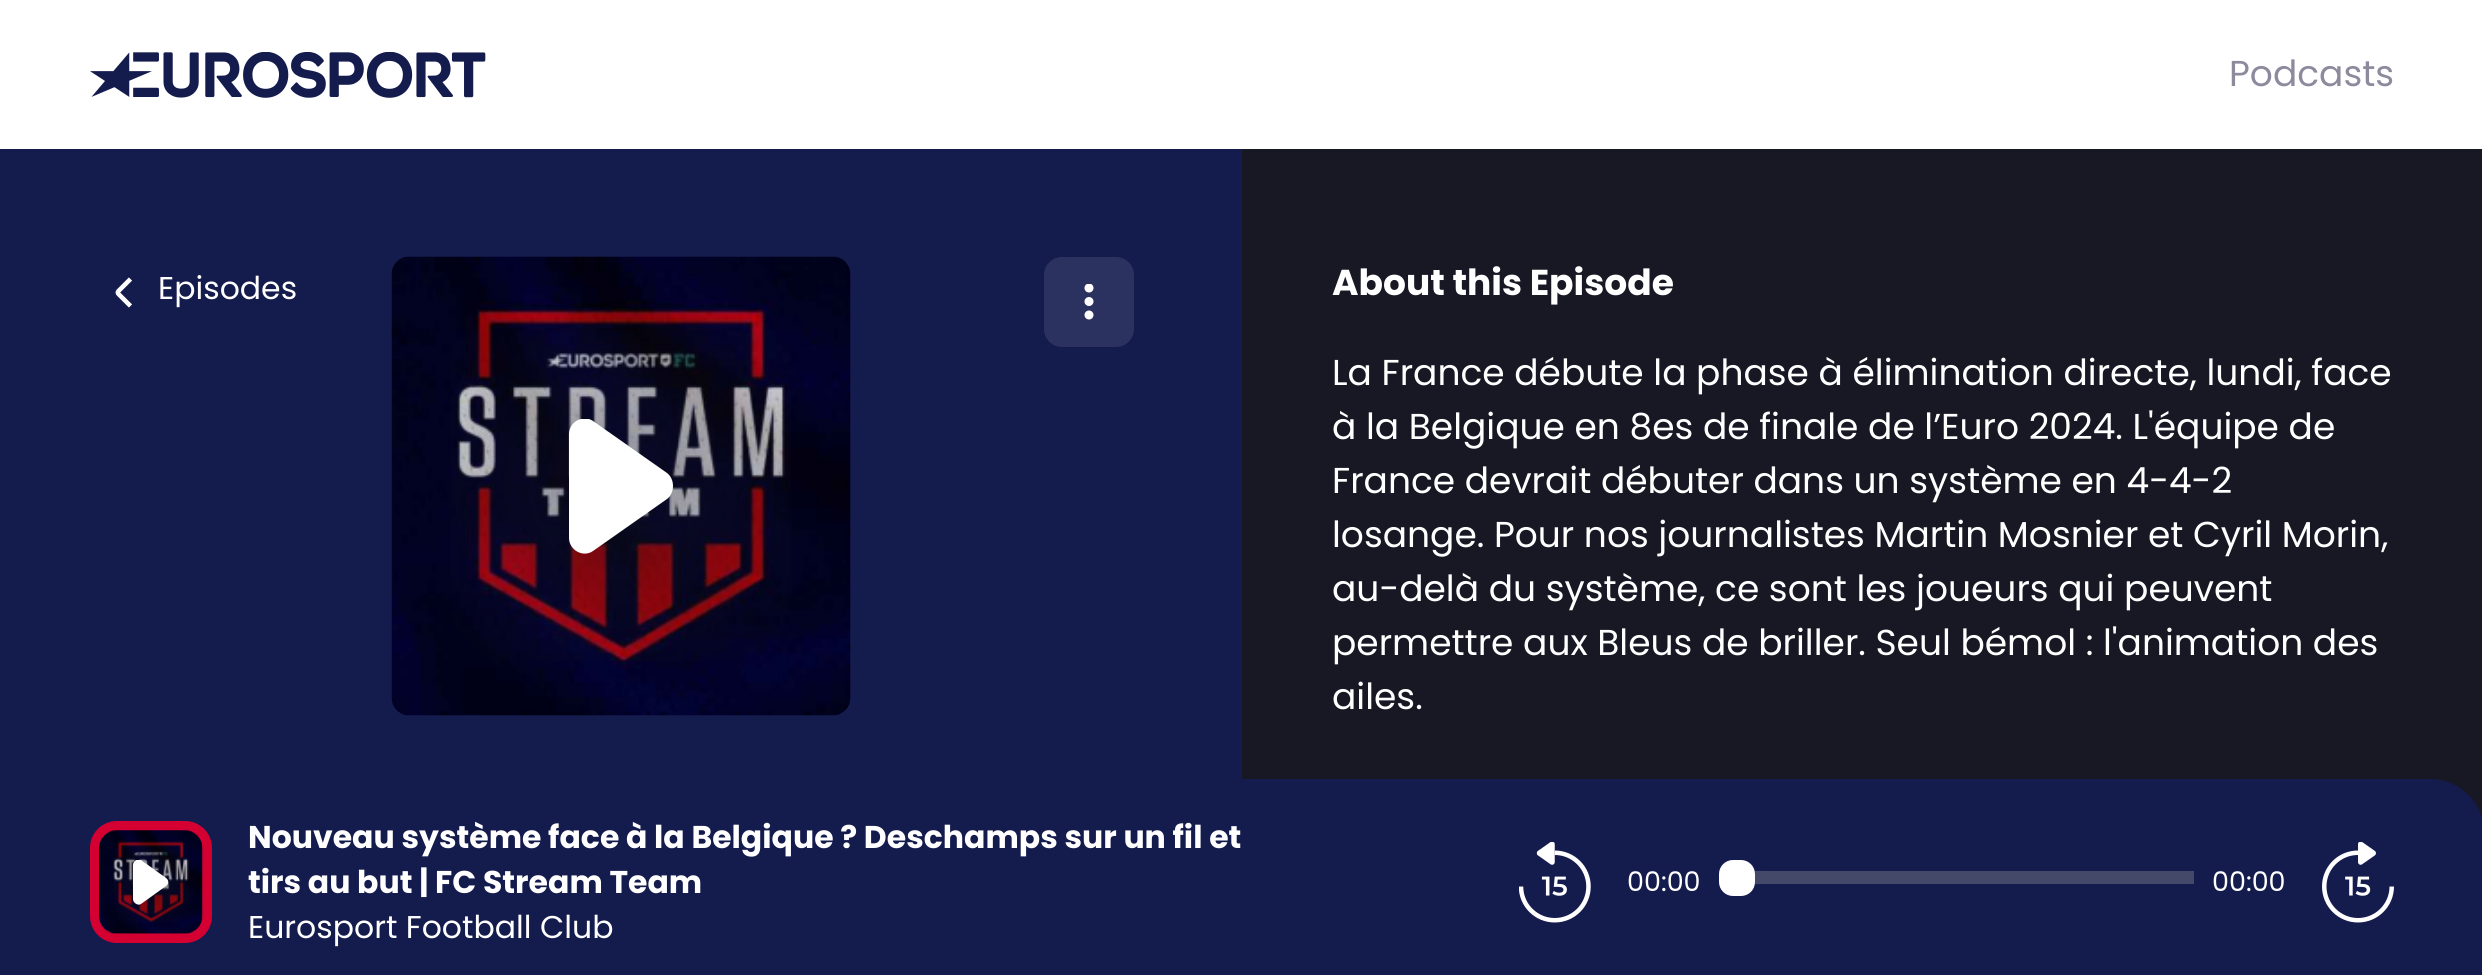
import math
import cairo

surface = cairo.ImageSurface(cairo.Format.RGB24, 2482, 975)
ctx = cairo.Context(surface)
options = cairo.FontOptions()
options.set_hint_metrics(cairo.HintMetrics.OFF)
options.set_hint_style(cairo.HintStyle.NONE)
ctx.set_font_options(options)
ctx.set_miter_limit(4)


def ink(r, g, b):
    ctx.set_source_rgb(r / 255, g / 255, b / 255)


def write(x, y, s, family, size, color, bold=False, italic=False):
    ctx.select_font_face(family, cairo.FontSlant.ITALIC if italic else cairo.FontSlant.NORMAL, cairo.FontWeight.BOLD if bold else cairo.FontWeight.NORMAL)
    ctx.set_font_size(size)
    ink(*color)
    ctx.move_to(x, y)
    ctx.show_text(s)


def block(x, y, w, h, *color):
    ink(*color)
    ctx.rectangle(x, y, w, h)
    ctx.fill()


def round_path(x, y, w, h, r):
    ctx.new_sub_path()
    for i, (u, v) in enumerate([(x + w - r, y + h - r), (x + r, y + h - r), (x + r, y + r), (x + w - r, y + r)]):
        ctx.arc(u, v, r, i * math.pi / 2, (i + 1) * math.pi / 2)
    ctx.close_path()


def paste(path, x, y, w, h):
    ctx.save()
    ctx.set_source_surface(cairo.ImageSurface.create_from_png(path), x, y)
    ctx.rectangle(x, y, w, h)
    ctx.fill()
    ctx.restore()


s1 = dict(family="Poppins", size=36, color=(141, 138, 158))
s2 = dict(family="Poppins", size=31.5, color=(255, 255, 255))
s3 = dict(family="Poppins", size=36, color=(255, 255, 255), bold=True)
s4 = dict(family="Poppins", size=36, color=(255, 255, 255))
s5 = dict(family="Poppins", size=31.5, color=(255, 255, 255), bold=True)
s6 = dict(family="Poppins", size=27, color=(255, 255, 255))

ink(255, 255, 255)
ctx.paint()
paste("pic1.png", 90, 52, 396, 46)
write(2229, 86, "Podcasts", **s1)
block(0, 149, 1242, 684, 20, 27, 77)
ctx.new_path()
ctx.move_to(130.5, 279)
ctx.line_to(118.5, 291)
ctx.curve_to(117.5, 292, 117.5, 293, 118.5, 294)
ctx.line_to(130.5, 306)
ink(255, 255, 255)
ctx.set_line_width(4.5)
ctx.stroke()
write(158, 299, "Episodes", **s2)
ink(44, 50, 95)
round_path(1044, 257, 90, 90, 18)
ctx.fill()
paste("pic2.png", 1084, 284, 10, 36)
paste("pic3.png", 391, 256, 460, 460)
gradient = cairo.RadialGradient(621, 486, 0, 621, 486, 230)
gradient.add_color_stop_rgba(0, 0.094, 0.09, 0.141, 0.4)
gradient.add_color_stop_rgba(1, 0.094, 0.09, 0.141, 0)
ctx.set_source(gradient)
ctx.rectangle(451, 308, 340, 353)
ctx.fill()
ctx.save()
ctx.rectangle(554, 419, 135, 135)
ctx.clip()
ink(255, 255, 255)
ctx.new_path()
ctx.move_to(569, 538)
ctx.line_to(569, 434)
ctx.curve_to(569, 422, 583, 414, 593, 421)
ctx.line_to(667, 473)
ctx.curve_to(675, 479, 675, 493, 667, 499)
ctx.line_to(593, 551)
ctx.curve_to(583, 558, 569, 550, 569, 538)
ctx.close_path()
ctx.fill()
ctx.restore()
block(1242, 149, 1240, 670, 24, 23, 36)
write(1332, 295, "About this Episode", **s3)
write(1332, 385, "La France débute la phase à élimination directe, lundi, face", **s4)
write(1332, 439, "à la Belgique en 8es de finale de l’Euro 2024. L'équipe de", **s4)
write(1332, 493, "France devrait débuter dans un système en 4-4-2", **s4)
write(1332, 547, "losange. Pour nos journalistes Martin Mosnier et Cyril Morin,", **s4)
write(1332, 601, "au-delà du système, ce sont les joueurs qui peuvent", **s4)
write(1332, 655, "permettre aux Bleus de briller. Seul bémol : l'animation des", **s4)
write(1332, 709, "ailes.", **s4)
ink(20, 27, 77)
ctx.new_path()
ctx.move_to(54, 779)
ctx.line_to(2430, 779)
ctx.curve_to(2460, 779, 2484, 803, 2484, 833)
ctx.line_to(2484, 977)
ctx.line_to(0, 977)
ctx.line_to(0, 833)
ctx.curve_to(0, 803, 24, 779, 54, 779)
ctx.close_path()
ctx.fill()
ink(213, 0, 50)
ctx.new_path()
ctx.move_to(117, 821)
ctx.line_to(185, 821)
ctx.curve_to(200, 821, 212, 833, 212, 848)
ctx.line_to(212, 916)
ctx.curve_to(212, 931, 200, 943, 185, 943)
ctx.line_to(117, 943)
ctx.curve_to(102, 943, 90, 931, 90, 916)
ctx.line_to(90, 848)
ctx.curve_to(90, 833, 102, 821, 117, 821)
ctx.close_path()
ctx.fill()
paste("pic4.png", 99, 830, 104, 104)
gradient = cairo.RadialGradient(151, 882, 0, 151, 882, 52)
gradient.add_color_stop_rgba(0, 0.094, 0.09, 0.141, 0.4)
gradient.add_color_stop_rgba(1, 0.094, 0.09, 0.141, 0)
ctx.set_source(gradient)
ctx.rectangle(113, 842, 76, 80)
ctx.fill()
ctx.save()
ctx.rectangle(128, 860, 45, 45)
ctx.clip()
ink(255, 255, 255)
ctx.new_path()
ctx.move_to(133, 899)
ctx.line_to(133, 865)
ctx.curve_to(133, 861, 138, 858, 141, 860)
ctx.line_to(166, 878)
ctx.curve_to(169, 880, 169, 884, 166, 886)
ctx.line_to(141, 904)
ctx.curve_to(138, 906, 133, 903, 133, 899)
ctx.close_path()
ctx.fill()
ctx.restore()
write(248, 848, "Nouveau système face à la Belgique ? Deschamps sur un fil et", **s5)
write(248, 893, "tirs au but | FC Stream Team", **s5)
write(248, 938, "Eurosport Football Club", **s2)
paste("pic5.png", 1519, 842, 72, 81)
write(1627, 891, "00:00", **s6)
block(2192, 871, 2, 13, 68, 72, 105)
round_path(2180, 871, 14, 13, 2)
ctx.fill()
round_path(2178, 871, 14, 13, 2)
ctx.fill()
round_path(2176, 871, 13, 13, 2)
ctx.fill()
round_path(2174, 871, 13, 13, 2)
ctx.fill()
round_path(2171, 871, 14, 13, 2)
ctx.fill()
round_path(2169, 871, 14, 13, 2)
ctx.fill()
round_path(2167, 871, 13, 13, 2)
ctx.fill()
round_path(2165, 871, 13, 13, 2)
ctx.fill()
round_path(2162, 871, 14, 13, 2)
ctx.fill()
round_path(2160, 871, 14, 13, 2)
ctx.fill()
round_path(2158, 871, 13, 13, 2)
ctx.fill()
round_path(2156, 871, 13, 13, 2)
ctx.fill()
round_path(2153, 871, 14, 13, 2)
ctx.fill()
round_path(2151, 871, 14, 13, 2)
ctx.fill()
round_path(2149, 871, 13, 13, 2)
ctx.fill()
round_path(2147, 871, 13, 13, 2)
ctx.fill()
round_path(2144, 871, 14, 13, 2)
ctx.fill()
round_path(2142, 871, 14, 13, 2)
ctx.fill()
round_path(2140, 871, 13, 13, 2)
ctx.fill()
round_path(2138, 871, 13, 13, 2)
ctx.fill()
round_path(2135, 871, 14, 13, 2)
ctx.fill()
round_path(2133, 871, 14, 13, 2)
ctx.fill()
round_path(2131, 871, 13, 13, 2)
ctx.fill()
round_path(2129, 871, 13, 13, 2)
ctx.fill()
round_path(2126, 871, 14, 13, 2)
ctx.fill()
round_path(2124, 871, 14, 13, 2)
ctx.fill()
round_path(2122, 871, 13, 13, 2)
ctx.fill()
round_path(2120, 871, 13, 13, 2)
ctx.fill()
round_path(2117, 871, 14, 13, 2)
ctx.fill()
round_path(2115, 871, 14, 13, 2)
ctx.fill()
round_path(2113, 871, 13, 13, 2)
ctx.fill()
round_path(2111, 871, 13, 13, 2)
ctx.fill()
round_path(2108, 871, 14, 13, 2)
ctx.fill()
round_path(2106, 871, 14, 13, 2)
ctx.fill()
round_path(2104, 871, 13, 13, 2)
ctx.fill()
round_path(2102, 871, 13, 13, 2)
ctx.fill()
round_path(2099, 871, 14, 13, 2)
ctx.fill()
round_path(2097, 871, 14, 13, 2)
ctx.fill()
round_path(2095, 871, 13, 13, 2)
ctx.fill()
round_path(2093, 871, 13, 13, 2)
ctx.fill()
round_path(2090, 871, 14, 13, 2)
ctx.fill()
round_path(2088, 871, 14, 13, 2)
ctx.fill()
round_path(2086, 871, 13, 13, 2)
ctx.fill()
round_path(2084, 871, 13, 13, 2)
ctx.fill()
round_path(2081, 871, 14, 13, 2)
ctx.fill()
round_path(2079, 871, 14, 13, 2)
ctx.fill()
round_path(2077, 871, 13, 13, 2)
ctx.fill()
round_path(2075, 871, 13, 13, 2)
ctx.fill()
round_path(2072, 871, 14, 13, 2)
ctx.fill()
round_path(2070, 871, 14, 13, 2)
ctx.fill()
round_path(2068, 871, 13, 13, 2)
ctx.fill()
round_path(2066, 871, 13, 13, 2)
ctx.fill()
round_path(2063, 871, 14, 13, 2)
ctx.fill()
round_path(2061, 871, 14, 13, 2)
ctx.fill()
round_path(2059, 871, 13, 13, 2)
ctx.fill()
round_path(2057, 871, 13, 13, 2)
ctx.fill()
round_path(2054, 871, 14, 13, 2)
ctx.fill()
round_path(2052, 871, 14, 13, 2)
ctx.fill()
round_path(2050, 871, 13, 13, 2)
ctx.fill()
round_path(2048, 871, 13, 13, 2)
ctx.fill()
round_path(2045, 871, 14, 13, 2)
ctx.fill()
round_path(2043, 871, 14, 13, 2)
ctx.fill()
round_path(2041, 871, 13, 13, 2)
ctx.fill()
round_path(2039, 871, 13, 13, 2)
ctx.fill()
round_path(2036, 871, 14, 13, 2)
ctx.fill()
round_path(2034, 871, 14, 13, 2)
ctx.fill()
round_path(2032, 871, 13, 13, 2)
ctx.fill()
round_path(2030, 871, 13, 13, 2)
ctx.fill()
round_path(2027, 871, 14, 13, 2)
ctx.fill()
round_path(2025, 871, 14, 13, 2)
ctx.fill()
round_path(2023, 871, 13, 13, 2)
ctx.fill()
round_path(2021, 871, 13, 13, 2)
ctx.fill()
round_path(2018, 871, 14, 13, 2)
ctx.fill()
round_path(2016, 871, 14, 13, 2)
ctx.fill()
round_path(2014, 871, 13, 13, 2)
ctx.fill()
round_path(2012, 871, 13, 13, 2)
ctx.fill()
round_path(2009, 871, 14, 13, 2)
ctx.fill()
round_path(2007, 871, 14, 13, 2)
ctx.fill()
round_path(2005, 871, 13, 13, 2)
ctx.fill()
round_path(2003, 871, 13, 13, 2)
ctx.fill()
round_path(2000, 871, 14, 13, 2)
ctx.fill()
round_path(1998, 871, 14, 13, 2)
ctx.fill()
round_path(1996, 871, 13, 13, 2)
ctx.fill()
round_path(1994, 871, 13, 13, 2)
ctx.fill()
round_path(1991, 871, 14, 13, 2)
ctx.fill()
round_path(1989, 871, 14, 13, 2)
ctx.fill()
round_path(1987, 871, 13, 13, 2)
ctx.fill()
round_path(1985, 871, 13, 13, 2)
ctx.fill()
round_path(1982, 871, 14, 13, 2)
ctx.fill()
round_path(1980, 871, 14, 13, 2)
ctx.fill()
round_path(1978, 871, 13, 13, 2)
ctx.fill()
round_path(1976, 871, 13, 13, 2)
ctx.fill()
round_path(1973, 871, 14, 13, 2)
ctx.fill()
round_path(1971, 871, 14, 13, 2)
ctx.fill()
round_path(1969, 871, 13, 13, 2)
ctx.fill()
round_path(1967, 871, 13, 13, 2)
ctx.fill()
round_path(1964, 871, 14, 13, 2)
ctx.fill()
round_path(1962, 871, 14, 13, 2)
ctx.fill()
round_path(1960, 871, 13, 13, 2)
ctx.fill()
round_path(1958, 871, 13, 13, 2)
ctx.fill()
round_path(1955, 871, 14, 13, 2)
ctx.fill()
round_path(1953, 871, 14, 13, 2)
ctx.fill()
round_path(1951, 871, 13, 13, 2)
ctx.fill()
round_path(1949, 871, 13, 13, 2)
ctx.fill()
round_path(1946, 871, 14, 13, 2)
ctx.fill()
round_path(1944, 871, 14, 13, 2)
ctx.fill()
round_path(1942, 871, 13, 13, 2)
ctx.fill()
round_path(1940, 871, 13, 13, 2)
ctx.fill()
round_path(1937, 871, 14, 13, 2)
ctx.fill()
round_path(1935, 871, 14, 13, 2)
ctx.fill()
round_path(1933, 871, 13, 13, 2)
ctx.fill()
round_path(1931, 871, 13, 13, 2)
ctx.fill()
round_path(1928, 871, 14, 13, 2)
ctx.fill()
round_path(1926, 871, 14, 13, 2)
ctx.fill()
round_path(1924, 871, 13, 13, 2)
ctx.fill()
round_path(1922, 871, 13, 13, 2)
ctx.fill()
round_path(1919, 871, 14, 13, 2)
ctx.fill()
round_path(1917, 871, 14, 13, 2)
ctx.fill()
round_path(1915, 871, 13, 13, 2)
ctx.fill()
round_path(1913, 871, 13, 13, 2)
ctx.fill()
round_path(1910, 871, 14, 13, 2)
ctx.fill()
round_path(1908, 871, 14, 13, 2)
ctx.fill()
round_path(1906, 871, 13, 13, 2)
ctx.fill()
round_path(1904, 871, 13, 13, 2)
ctx.fill()
round_path(1901, 871, 14, 13, 2)
ctx.fill()
round_path(1899, 871, 14, 13, 2)
ctx.fill()
round_path(1897, 871, 13, 13, 2)
ctx.fill()
round_path(1895, 871, 13, 13, 2)
ctx.fill()
round_path(1892, 871, 14, 13, 2)
ctx.fill()
round_path(1890, 871, 14, 13, 2)
ctx.fill()
round_path(1888, 871, 13, 13, 2)
ctx.fill()
round_path(1886, 871, 13, 13, 2)
ctx.fill()
round_path(1883, 871, 14, 13, 2)
ctx.fill()
round_path(1881, 871, 14, 13, 2)
ctx.fill()
round_path(1879, 871, 13, 13, 2)
ctx.fill()
round_path(1877, 871, 13, 13, 2)
ctx.fill()
round_path(1874, 871, 14, 13, 2)
ctx.fill()
round_path(1872, 871, 14, 13, 2)
ctx.fill()
round_path(1870, 871, 13, 13, 2)
ctx.fill()
round_path(1868, 871, 13, 13, 2)
ctx.fill()
round_path(1865, 871, 14, 13, 2)
ctx.fill()
round_path(1863, 871, 14, 13, 2)
ctx.fill()
round_path(1861, 871, 13, 13, 2)
ctx.fill()
round_path(1859, 871, 13, 13, 2)
ctx.fill()
round_path(1856, 871, 14, 13, 2)
ctx.fill()
round_path(1854, 871, 14, 13, 2)
ctx.fill()
round_path(1852, 871, 13, 13, 2)
ctx.fill()
round_path(1850, 871, 13, 13, 2)
ctx.fill()
round_path(1847, 871, 14, 13, 2)
ctx.fill()
round_path(1845, 871, 14, 13, 2)
ctx.fill()
round_path(1843, 871, 13, 13, 2)
ctx.fill()
round_path(1841, 871, 13, 13, 2)
ctx.fill()
round_path(1838, 871, 14, 13, 2)
ctx.fill()
round_path(1836, 871, 14, 13, 2)
ctx.fill()
round_path(1834, 871, 13, 13, 2)
ctx.fill()
round_path(1832, 871, 13, 13, 2)
ctx.fill()
round_path(1829, 871, 14, 13, 2)
ctx.fill()
round_path(1827, 871, 14, 13, 2)
ctx.fill()
round_path(1825, 871, 13, 13, 2)
ctx.fill()
round_path(1823, 871, 13, 13, 2)
ctx.fill()
round_path(1820, 871, 14, 13, 2)
ctx.fill()
round_path(1818, 871, 14, 13, 2)
ctx.fill()
round_path(1816, 871, 13, 13, 2)
ctx.fill()
round_path(1814, 871, 13, 13, 2)
ctx.fill()
round_path(1811, 871, 14, 13, 2)
ctx.fill()
round_path(1809, 871, 14, 13, 2)
ctx.fill()
round_path(1807, 871, 13, 13, 2)
ctx.fill()
round_path(1805, 871, 13, 13, 2)
ctx.fill()
round_path(1802, 871, 14, 13, 2)
ctx.fill()
round_path(1800, 871, 14, 13, 2)
ctx.fill()
round_path(1798, 871, 13, 13, 2)
ctx.fill()
round_path(1796, 871, 13, 13, 2)
ctx.fill()
round_path(1793, 871, 14, 13, 2)
ctx.fill()
round_path(1791, 871, 14, 13, 2)
ctx.fill()
round_path(1789, 871, 13, 13, 2)
ctx.fill()
round_path(1787, 871, 13, 13, 2)
ctx.fill()
round_path(1784, 871, 14, 13, 2)
ctx.fill()
round_path(1782, 871, 14, 13, 2)
ctx.fill()
round_path(1780, 871, 13, 13, 2)
ctx.fill()
round_path(1778, 871, 13, 13, 2)
ctx.fill()
round_path(1775, 871, 14, 13, 2)
ctx.fill()
round_path(1773, 871, 14, 13, 2)
ctx.fill()
round_path(1771, 871, 13, 13, 2)
ctx.fill()
round_path(1769, 871, 13, 13, 2)
ctx.fill()
round_path(1766, 871, 14, 13, 2)
ctx.fill()
round_path(1764, 871, 14, 13, 2)
ctx.fill()
round_path(1762, 871, 13, 13, 2)
ctx.fill()
round_path(1760, 871, 13, 13, 2)
ctx.fill()
round_path(1757, 871, 14, 13, 2)
ctx.fill()
round_path(1755, 871, 14, 13, 2)
ctx.fill()
ctx.new_path()
ctx.move_to(1755, 871)
ctx.line_to(1755, 884)
ctx.line_to(1761, 884)
ctx.curve_to(1766, 884, 1766, 884, 1766, 879)
ctx.curve_to(1766, 877, 1767, 871, 1764, 871)
ctx.close_path()
ctx.fill()
ctx.new_path()
ctx.move_to(1755, 884)
ctx.curve_to(1757, 884, 1763.5, 885, 1764, 882.5)
ctx.line_to(1764, 872.5)
ctx.curve_to(1763.5, 870, 1757, 871, 1755, 871)
ctx.close_path()
ctx.fill()
ink(255, 255, 255)
round_path(1719, 860, 36, 36, 14)
ctx.fill()
write(2212, 891, "00:00", **s6)
paste("pic6.png", 2322, 842, 72, 81)
surface.write_to_png("screenshot.png")
